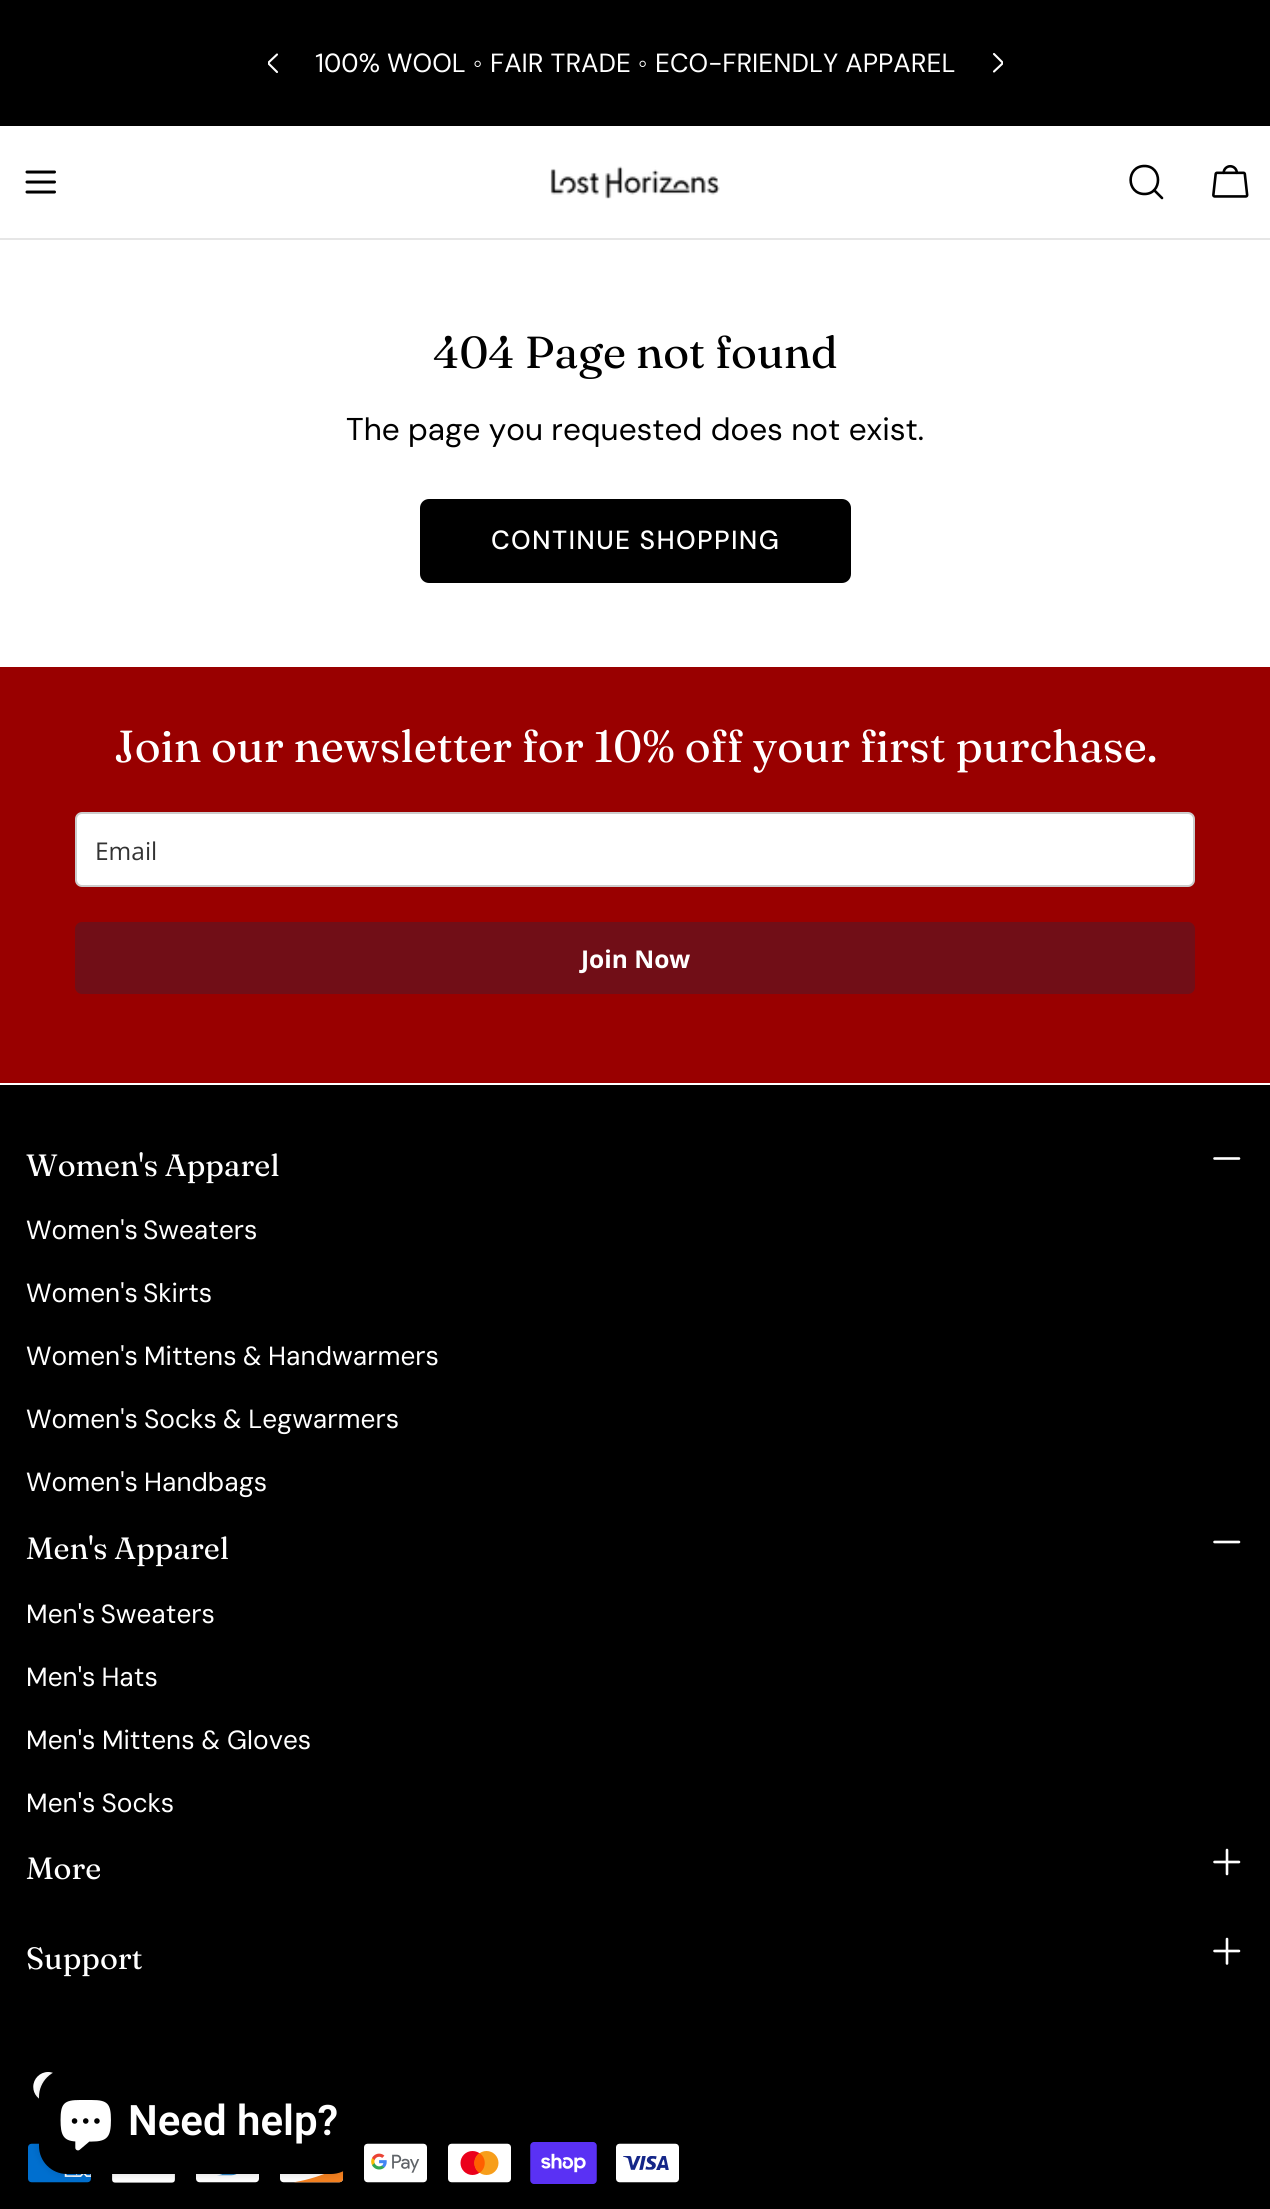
import math
import cairo

surface = cairo.ImageSurface(cairo.Format.RGB24, 1270, 2209)
ctx = cairo.Context(surface)
options = cairo.FontOptions()
options.set_hint_metrics(cairo.HintMetrics.OFF)
options.set_hint_style(cairo.HintStyle.NONE)
ctx.set_font_options(options)
ctx.set_miter_limit(4)


def ink(r, g, b):
    ctx.set_source_rgb(r / 255, g / 255, b / 255)


def write(x, y, s, family, size, color, bold=False, italic=False):
    ctx.select_font_face(family, cairo.FontSlant.ITALIC if italic else cairo.FontSlant.NORMAL, cairo.FontWeight.BOLD if bold else cairo.FontWeight.NORMAL)
    ctx.set_font_size(size)
    ink(*color)
    ctx.move_to(x, y)
    ctx.show_text(s)


def write_spaced(x, y, s, letter, word):
    ctx.move_to(x, y)
    for ch in s:
        ctx.show_text(ch)
        ctx.rel_move_to(letter + word * (ch == ' '), 0)


def block(x, y, w, h, *color):
    ink(*color)
    ctx.rectangle(x, y, w, h)
    ctx.fill()


def round_path(x, y, w, h, r):
    ctx.new_sub_path()
    for i, (u, v) in enumerate([(x + w - r, y + h - r), (x + r, y + h - r), (x + r, y + r), (x + w - r, y + r)]):
        ctx.arc(u, v, r, i * math.pi / 2, (i + 1) * math.pi / 2)
    ctx.close_path()


def blur_box(x, y, w, h, r, blur, alpha):
    ctx.push_group_with_content(cairo.Content.ALPHA)
    ctx.set_operator(cairo.Operator.SOURCE)
    for i in range(15, -16, -2):
        e = blur * i / 6
        if min(w, h) + 2 * e > 0:
            ctx.set_source_rgba(0, 0, 0, alpha * math.erfc((i - 1) / 8.5) / 2)
            round_path(x - e, y - e, w + 2 * e, h + 2 * e, max(0, min(r + e + blur * .6, min(w, h) / 2 + e)))
            ctx.fill()
    ctx.mask(ctx.pop_group())


def paste(path, x, y, w, h):
    ctx.save()
    ctx.set_source_surface(cairo.ImageSurface.create_from_png(path), x, y)
    ctx.rectangle(x, y, w, h)
    ctx.fill()
    ctx.restore()


s1 = dict(family="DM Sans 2", size=26.25, color=(255, 255, 255))
s2 = dict(family="Liberation Sans", size=26.25, color=(255, 255, 255))
s3 = dict(family="Fraunces", size=44.8, color=(0, 0, 0))
s4 = dict(family="DM Sans", size=31.5, color=(0, 0, 0))
s5 = dict(family="Fraunces", size=44.8, color=(255, 255, 255))
s6 = dict(family="Open Sans", size=24.5, color=(51, 51, 51))
s7 = dict(family="Open Sans", size=24.5, color=(255, 255, 255), bold=True)
s8 = dict(family="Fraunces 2", size=30.75, color=(255, 255, 255))
s9 = dict(family="Roboto SemiBold", size=42, color=(255, 255, 255))

ink(255, 255, 255)
ctx.paint()
block(0, 0, 1270, 126, 0, 0, 0)
ctx.save()
ctx.rectangle(268, 49, 19, 28)
ctx.clip()
ctx.new_path()
ctx.move_to(277, 72)
ctx.line_to(268, 63)
ctx.line_to(277, 54.5)
ink(255, 255, 255)
ctx.set_line_width(2.1)
ctx.set_line_cap(cairo.LineCap.ROUND)
ctx.set_line_join(cairo.LineJoin.ROUND)
ctx.stroke()
ctx.restore()
ctx.save()
ctx.rectangle(984, 49, 19, 28)
ctx.clip()
ctx.new_path()
ctx.move_to(994, 54)
ctx.line_to(1003, 63)
ctx.line_to(994, 71.5)
ink(255, 255, 255)
ctx.set_line_width(2.1)
ctx.set_line_cap(cairo.LineCap.ROUND)
ctx.set_line_join(cairo.LineJoin.ROUND)
ctx.stroke()
ctx.restore()
write(315, 72, "100% WOOL", **s1)
write(473, 72, "◦", **s2)
write(490, 72, "FAIR TRADE", **s1)
write(638, 72, "◦", **s2)
write(655, 72, "ECO-FRIENDLY APPAREL", **s1)
block(0, 238, 1270, 2, 230, 230, 230)
ctx.new_path()
ctx.move_to(27, 182)
ctx.line_to(54.5, 182)
ctx.move_to(27, 172)
ctx.line_to(54.5, 172)
ctx.move_to(27, 192)
ctx.line_to(54.5, 192)
ink(0, 0, 0)
ctx.set_line_width(3)
ctx.set_line_cap(cairo.LineCap.ROUND)
ctx.set_line_join(cairo.LineJoin.ROUND)
ctx.stroke()
paste("pic1.png", 550, 166, 170, 33)
ctx.new_path()
ctx.move_to(1144.5, 194)
ctx.curve_to(1162.5, 194, 1162.5, 166, 1144.5, 166)
ctx.curve_to(1126, 166, 1126, 194, 1144.5, 194)
ctx.close_path()
ctx.move_to(1154, 190)
ctx.line_to(1162, 198)
ctx.set_line_width(2.6)
ctx.stroke()
paste("pic2.png", 1212, 164, 37, 34)
write(433, 368, "404 Page not found", **s3)
write(346, 440, "The page you requested does not exist.", **s4)
round_path(420, 499, 431, 84, 9)
ctx.fill()
ctx.select_font_face("DM Sans Medium")
ctx.set_font_size(26.25)
ink(255, 255, 255)
write_spaced(491, 549, "CONTINUE SHOPPING", 1.3, 0)
block(0, 667, 1270, 416, 153, 0, 0)
write(114, 762, "Join our newsletter for 10% off your first purchase.", **s5)
round_path(76, 813, 1118, 73, 6)
ctx.fill_preserve()
ink(204, 204, 204)
ctx.set_line_width(2)
ctx.set_line_cap(cairo.LineCap.BUTT)
ctx.set_line_join(cairo.LineJoin.MITER)
ctx.stroke()
write(95, 860, "Email", **s6)
ink(113, 14, 23)
round_path(75, 922, 1120, 72, 7)
ctx.fill()
write(581, 968, "Join Now", **s7)
block(0, 1085, 1270, 1124, 0, 0, 0)
write(26, 1176, "Women's Apparel", **s8)
ctx.new_path()
ctx.move_to(1214.5, 1158.5)
ctx.line_to(1239, 1158.5)
ctx.move_to(1214.5, 1158.5)
ctx.line_to(1239, 1158.5)
ctx.set_line_width(2.6)
ctx.set_line_cap(cairo.LineCap.ROUND)
ctx.set_line_join(cairo.LineJoin.ROUND)
ctx.stroke()
ctx.select_font_face("DM Sans 2")
ctx.set_font_size(26.25)
write_spaced(26, 1239, "Women's Sweaters", 0, -2)
write_spaced(26, 1302, "Women's Skirts", 0, -2)
write_spaced(26, 1365, "Women's Mittens & Handwarmers", 0, -1)
write_spaced(26, 1428, "Women's Socks & Legwarmers", 0, -1)
write_spaced(26, 1491, "Women's Handbags", 0, -1)
write(26, 1559, "Men's Apparel", **s8)
ctx.new_path()
ctx.move_to(1214.5, 1542)
ctx.line_to(1239, 1542)
ctx.move_to(1214.5, 1542)
ctx.line_to(1239, 1542)
ctx.stroke()
ctx.select_font_face("DM Sans 2")
ctx.set_font_size(26.25)
write_spaced(26, 1623, "Men's Sweaters", 0, -2)
write_spaced(26, 1686, "Men's Hats", 0, -1)
write_spaced(26, 1749, "Men's Mittens & Gloves", 0, -0.5)
write_spaced(26, 1812, "Men's Socks", 0, -1)
write(26, 1879, "More", **s8)
ctx.new_path()
ctx.move_to(1214.5, 1862)
ctx.line_to(1239, 1862)
ctx.move_to(1227, 1850)
ctx.line_to(1227, 1874)
ctx.stroke()
write(26, 1969, "Support", **s8)
ctx.new_path()
ctx.move_to(1214.5, 1951)
ctx.line_to(1239, 1951)
ctx.move_to(1227, 1939)
ctx.line_to(1227, 1963.5)
ctx.stroke()
paste("pic3.png", 33, 2072, 20, 27)
paste("pic4.png", 28, 2143, 63, 40)
paste("pic5.png", 112, 2174, 63, 9)
paste("pic6.png", 196, 2174, 63, 9)
paste("pic7.png", 280, 2170, 64, 13)
paste("pic8.png", 364, 2143, 63, 40)
paste("pic9.png", 448, 2143, 63, 40)
paste("pic10.png", 530, 2142, 67, 42)
paste("pic11.png", 616, 2143, 63, 40)
ink(0, 0, 0)
blur_box(39, 2069, 320, 105, 28, 4.5, 0.15)
ink(0, 0, 0)
round_path(39, 2069, 320, 105, 28)
ctx.fill()
paste("pic12.png", 60, 2100, 51, 51)
write(128, 2135, "Need help?", **s9)
surface.write_to_png("screenshot.png")
